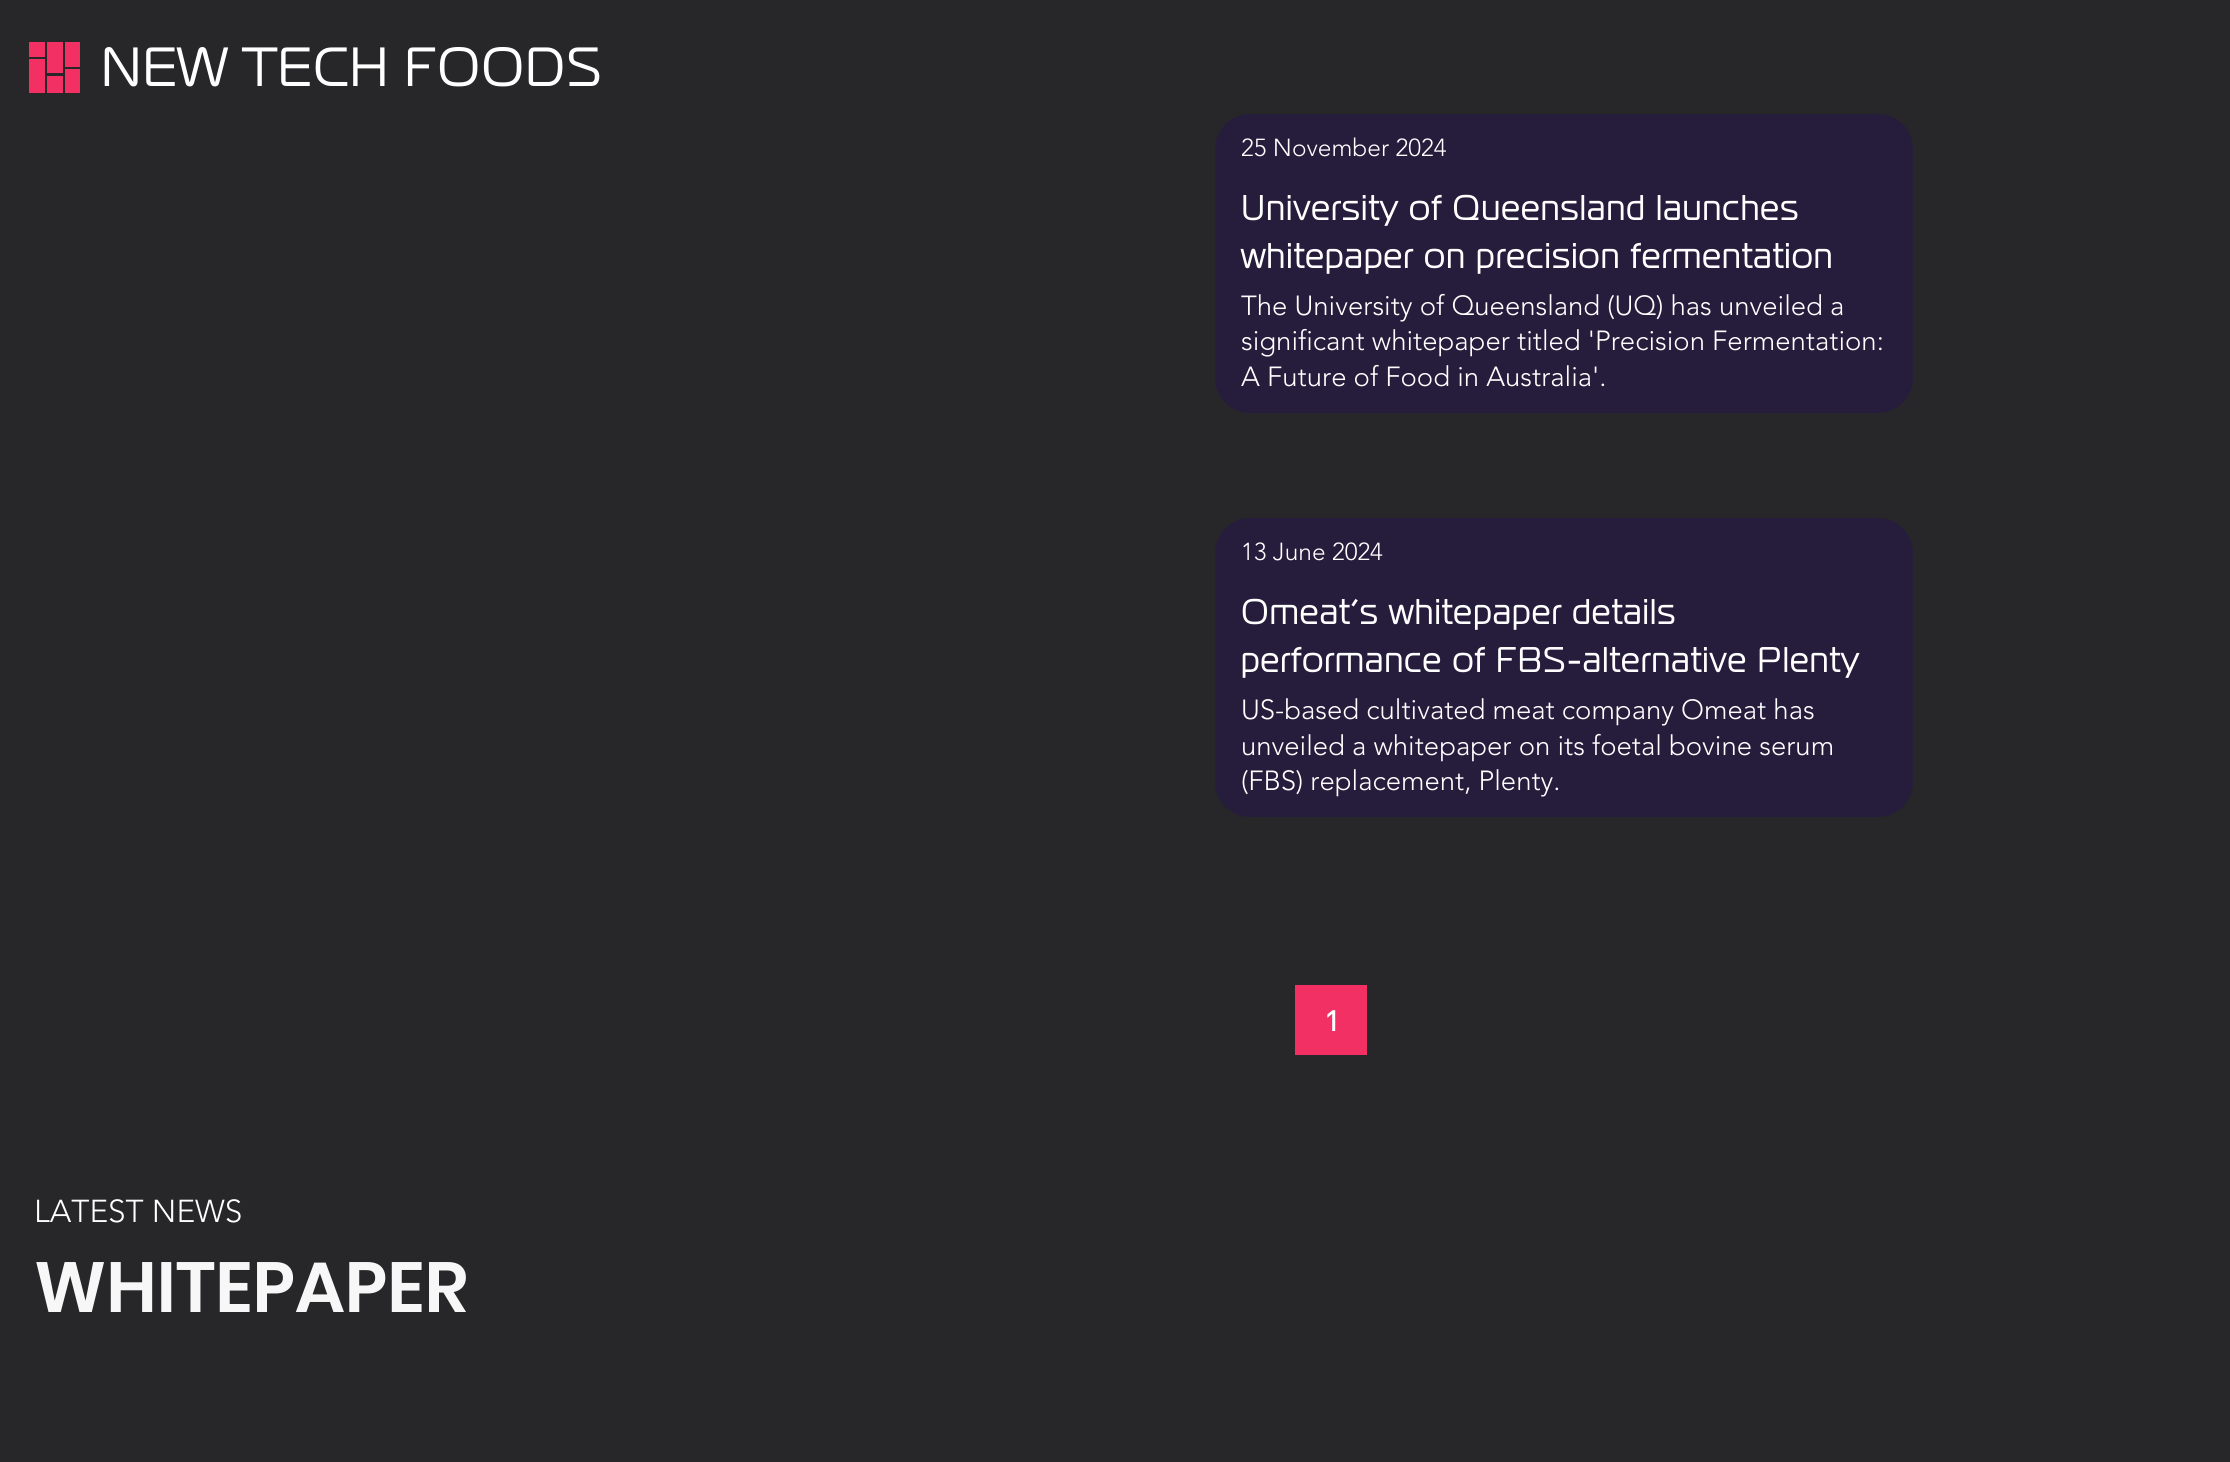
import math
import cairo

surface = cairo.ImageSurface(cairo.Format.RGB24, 2230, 1462)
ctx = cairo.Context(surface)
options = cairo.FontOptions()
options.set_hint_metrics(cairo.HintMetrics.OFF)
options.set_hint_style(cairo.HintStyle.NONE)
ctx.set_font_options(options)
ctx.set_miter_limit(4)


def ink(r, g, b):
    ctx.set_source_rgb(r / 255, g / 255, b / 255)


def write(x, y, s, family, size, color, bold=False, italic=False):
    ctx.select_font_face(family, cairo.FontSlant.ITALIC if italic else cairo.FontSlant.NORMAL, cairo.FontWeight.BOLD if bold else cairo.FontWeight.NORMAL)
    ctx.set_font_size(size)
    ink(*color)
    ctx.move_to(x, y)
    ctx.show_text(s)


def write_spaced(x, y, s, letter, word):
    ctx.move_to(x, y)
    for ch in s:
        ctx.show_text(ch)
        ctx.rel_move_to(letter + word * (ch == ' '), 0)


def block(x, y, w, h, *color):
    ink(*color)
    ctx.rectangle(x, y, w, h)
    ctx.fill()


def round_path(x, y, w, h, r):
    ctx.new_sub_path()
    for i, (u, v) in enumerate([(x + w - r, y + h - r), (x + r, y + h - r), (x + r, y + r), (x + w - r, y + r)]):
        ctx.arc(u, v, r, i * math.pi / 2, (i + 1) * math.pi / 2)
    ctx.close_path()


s1 = dict(family="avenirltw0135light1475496 Light", size=24.5, color=(255, 255, 255))
s2 = dict(family="avenirltw0135light1475496 Light", size=27.5, color=(255, 255, 255))
s3 = dict(family="Wix Madefor Text", size=28, color=(255, 255, 255), bold=True)
s4 = dict(family="avenirltw0135light1475496 Light", size=31.5, color=(255, 255, 255))
s5 = dict(family="Poppins SemiBold", size=70.75, color=(247, 247, 247))

ink(39, 38, 41)
ctx.paint()
block(29, 42, 16, 15, 242, 48, 100)
block(29, 59, 16, 34, 242, 48, 100)
block(47, 42, 16, 31, 242, 48, 100)
block(47, 76, 16, 17, 242, 48, 100)
block(65, 42, 15, 25, 242, 48, 100)
block(65, 69, 15, 24, 242, 48, 100)
ctx.select_font_face("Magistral", cairo.FontSlant.NORMAL, cairo.FontWeight.BOLD)
ctx.set_font_size(53)
ink(255, 255, 255)
write_spaced(101, 86, "NEW TECH FOODS", 2.6, 0)
ink(38, 28, 60)
round_path(1215, 114, 698, 299, 35)
ctx.fill()
write(1241, 156, "25 November 2024", **s1)
ctx.select_font_face("Magistral", cairo.FontSlant.NORMAL, cairo.FontWeight.BOLD)
ctx.set_font_size(34.3)
write_spaced(1241, 220, "University of Queensland launches", 2.05, 0)
write_spaced(1241, 268, "whitepaper on precision fermentation", 2.05, 0)
write(1241, 315, "The University of Queensland (UQ) has unveiled a", **s2)
write(1241, 350, "significant whitepaper titled 'Precision Fermentation:", **s2)
write(1241, 386, "A Future of Food in Australia'.", **s2)
ink(38, 28, 60)
round_path(1215, 518, 698, 299, 35)
ctx.fill()
write(1241, 560, "13 June 2024", **s1)
ctx.select_font_face("Magistral", cairo.FontSlant.NORMAL, cairo.FontWeight.BOLD)
ctx.set_font_size(34.3)
write_spaced(1241, 624, "Omeat’s whitepaper details", 2.05, 0)
write_spaced(1241, 672, "performance of FBS-alternative Plenty", 2.05, 0)
write(1241, 719, "US-based cultivated meat company Omeat has", **s2)
write(1241, 755, "unveiled a whitepaper on its foetal bovine serum", **s2)
write(1241, 790, "(FBS) replacement, Plenty.", **s2)
block(1295, 985, 72, 70, 242, 48, 100)
write(1325, 1031, "1", **s3)
write(34, 1222, "LATEST NEWS", **s4)
write(34, 1312, "WHITEPAPER", **s5)
surface.write_to_png("screenshot.png")
